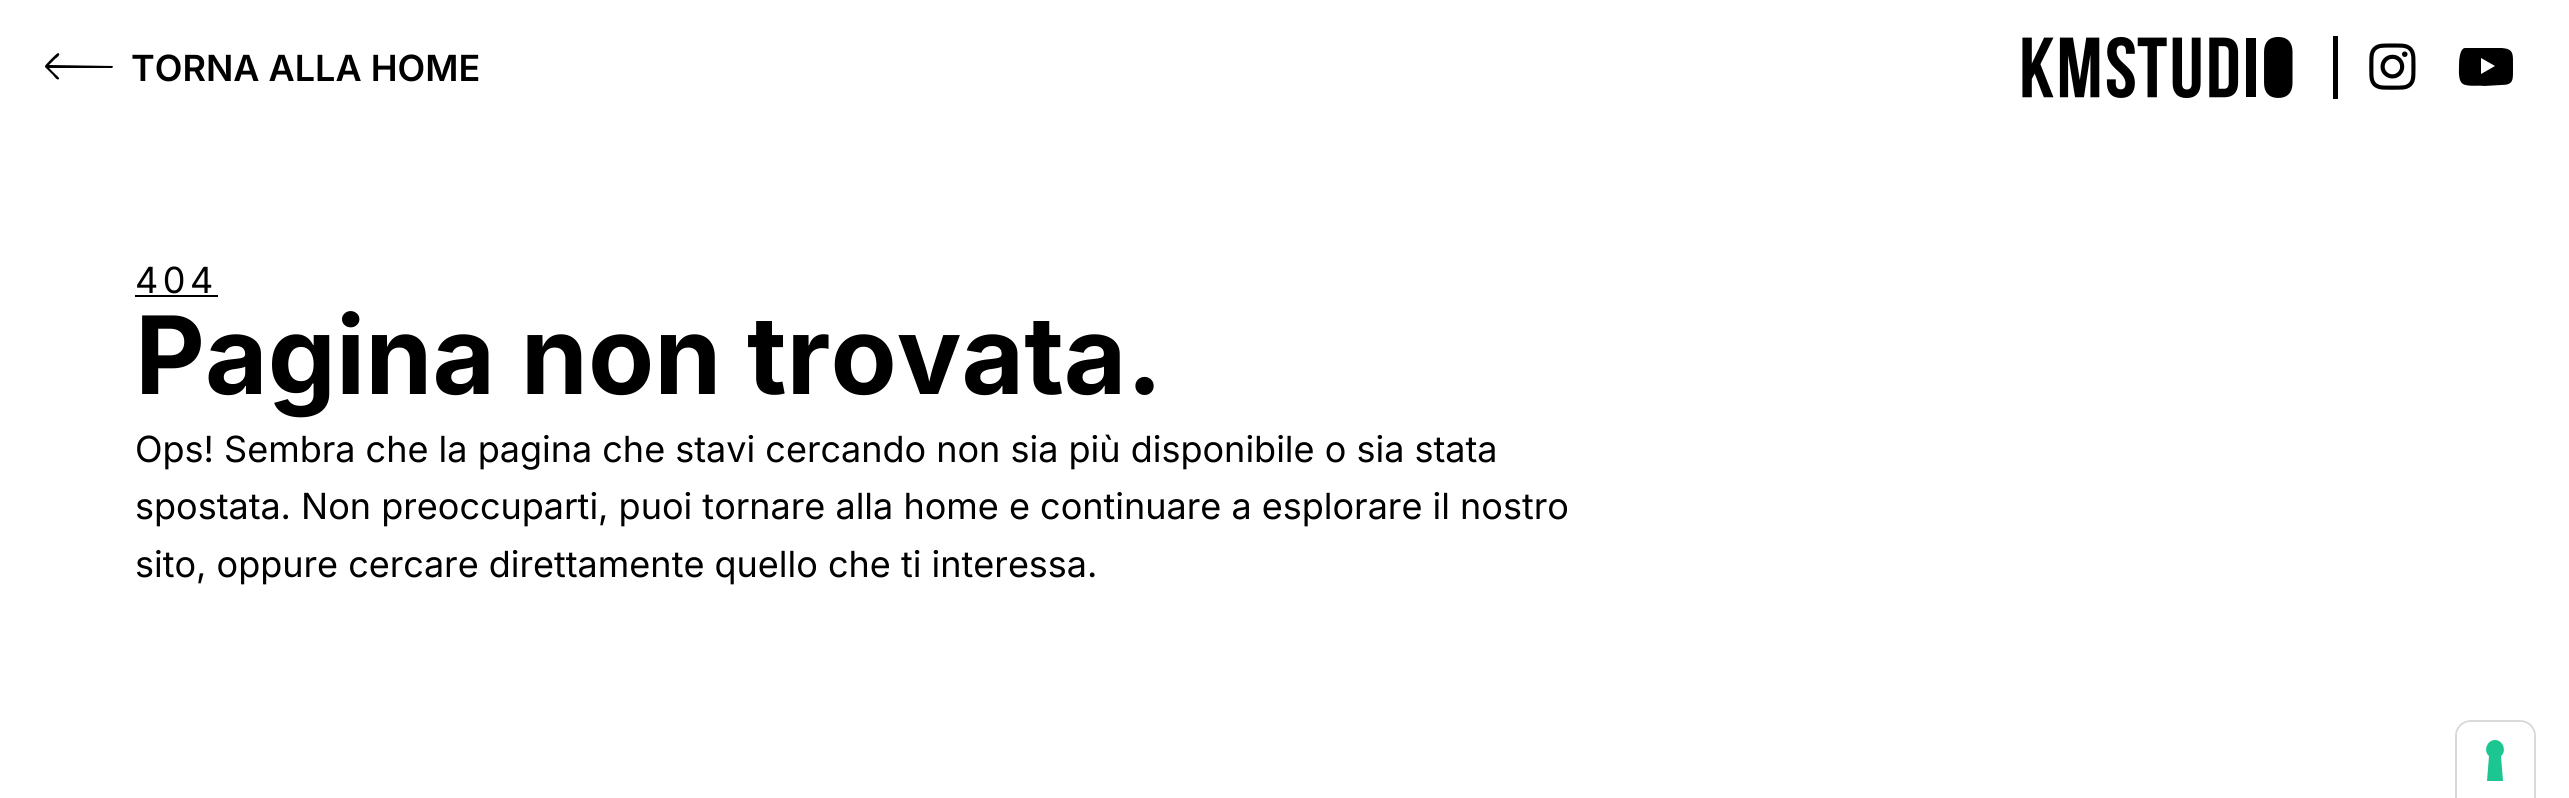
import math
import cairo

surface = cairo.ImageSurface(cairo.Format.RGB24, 2569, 798)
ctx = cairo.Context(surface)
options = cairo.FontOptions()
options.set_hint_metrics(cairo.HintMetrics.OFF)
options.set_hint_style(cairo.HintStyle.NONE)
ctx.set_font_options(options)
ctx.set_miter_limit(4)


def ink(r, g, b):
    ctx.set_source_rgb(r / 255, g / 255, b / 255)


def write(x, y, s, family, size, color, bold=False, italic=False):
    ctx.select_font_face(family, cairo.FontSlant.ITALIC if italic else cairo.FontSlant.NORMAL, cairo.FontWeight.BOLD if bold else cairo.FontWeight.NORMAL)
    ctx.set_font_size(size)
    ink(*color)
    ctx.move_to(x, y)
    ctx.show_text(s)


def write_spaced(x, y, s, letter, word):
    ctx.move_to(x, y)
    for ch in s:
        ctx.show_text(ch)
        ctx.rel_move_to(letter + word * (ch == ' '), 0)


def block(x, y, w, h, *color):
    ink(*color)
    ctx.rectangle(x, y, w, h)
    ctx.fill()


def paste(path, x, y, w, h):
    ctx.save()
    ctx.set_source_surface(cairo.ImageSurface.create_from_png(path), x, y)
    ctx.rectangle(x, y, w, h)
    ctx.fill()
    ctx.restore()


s1 = dict(family="Inter SemiBold", size=36, color=(0, 0, 0))
s2 = dict(family="Inter", size=108, color=(0, 0, 0), bold=True)
s3 = dict(family="Inter", size=36, color=(0, 0, 0))

ink(255, 255, 255)
ctx.paint()
ink(0, 0, 0)
ctx.new_path()
ctx.move_to(45, 67)
ctx.line_to(53, 75)
ctx.curve_to(54, 76, 57, 81, 59, 79)
ctx.curve_to(60, 78, 56, 75, 55, 74)
ctx.line_to(49, 68)
ctx.line_to(112, 68)
ctx.line_to(113, 67)
ctx.curve_to(113, 67, 113, 66, 112, 66)
ctx.line_to(49, 65)
ctx.line_to(55, 59)
ctx.curve_to(58, 57, 61, 54, 58, 53)
ctx.curve_to(57, 53, 46, 64, 45, 66)
ctx.close_path()
ctx.fill()
write(131, 81, "TORNA ALLA HOME", **s1)
block(2333, 36, 5, 63, 0, 0, 0)
paste("pic1.png", 2022, 36, 271, 63)
paste("pic2.png", 2369, 43, 47, 47)
ctx.new_path()
ctx.move_to(2481, 74)
ctx.line_to(2495, 66)
ctx.line_to(2481, 58)
ctx.close_path()
ctx.move_to(2486, 48)
ctx.line_to(2502, 48)
ctx.curve_to(2514, 49, 2513, 54, 2513, 67)
ctx.curve_to(2513, 80, 2514, 85, 2501, 85)
ctx.line_to(2484, 86)
ctx.curve_to(2480, 85, 2468, 87, 2463, 84)
ctx.curve_to(2458, 81, 2459, 71, 2459, 66)
ctx.curve_to(2459, 63, 2459, 47, 2466, 48)
ctx.close_path()
ctx.fill()
ctx.select_font_face("Inter")
write_spaced(135, 293, "404", 4.5, 0)
block(135, 295, 83, 2, 0, 0, 0)
write(135, 394, "Pagina non trovata.", **s2)
write(135, 462, "Ops! Sembra che la pagina che stavi cercando non sia più disponibile o sia stata", **s3)
write(135, 519, "spostata. Non preoccuparti, puoi tornare alla home e continuare a esplorare il nostro", **s3)
write(135, 577, "sito, oppure cercare direttamente quello che ti interessa.", **s3)
ctx.new_path()
ctx.move_to(2471, 721)
ctx.line_to(2520, 721)
ctx.curve_to(2528.5, 721, 2535, 727.5, 2535, 736)
ctx.line_to(2535, 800)
ctx.line_to(2456, 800)
ctx.line_to(2456, 736)
ctx.curve_to(2456, 727.5, 2462.5, 721, 2471, 721)
ctx.close_path()
ink(217, 217, 217)
ctx.stroke()
ink(255, 255, 255)
ctx.new_path()
ctx.move_to(2471, 722)
ctx.line_to(2520, 722)
ctx.curve_to(2527.5, 722, 2534, 728.5, 2534, 736)
ctx.line_to(2534, 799)
ctx.line_to(2457, 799)
ctx.line_to(2457, 736)
ctx.curve_to(2457, 728.5, 2463.5, 722, 2471, 722)
ctx.close_path()
ctx.fill()
ink(28, 198, 145)
ctx.set_fill_rule(cairo.FillRule.EVEN_ODD)
ctx.new_path()
ctx.move_to(2495, 740)
ctx.curve_to(2503, 740, 2507, 751, 2501, 756)
ctx.line_to(2503, 781)
ctx.line_to(2487, 781)
ctx.line_to(2489, 756)
ctx.curve_to(2483, 751, 2487, 740, 2495, 740)
ctx.close_path()
ctx.fill()
surface.write_to_png("screenshot.png")
